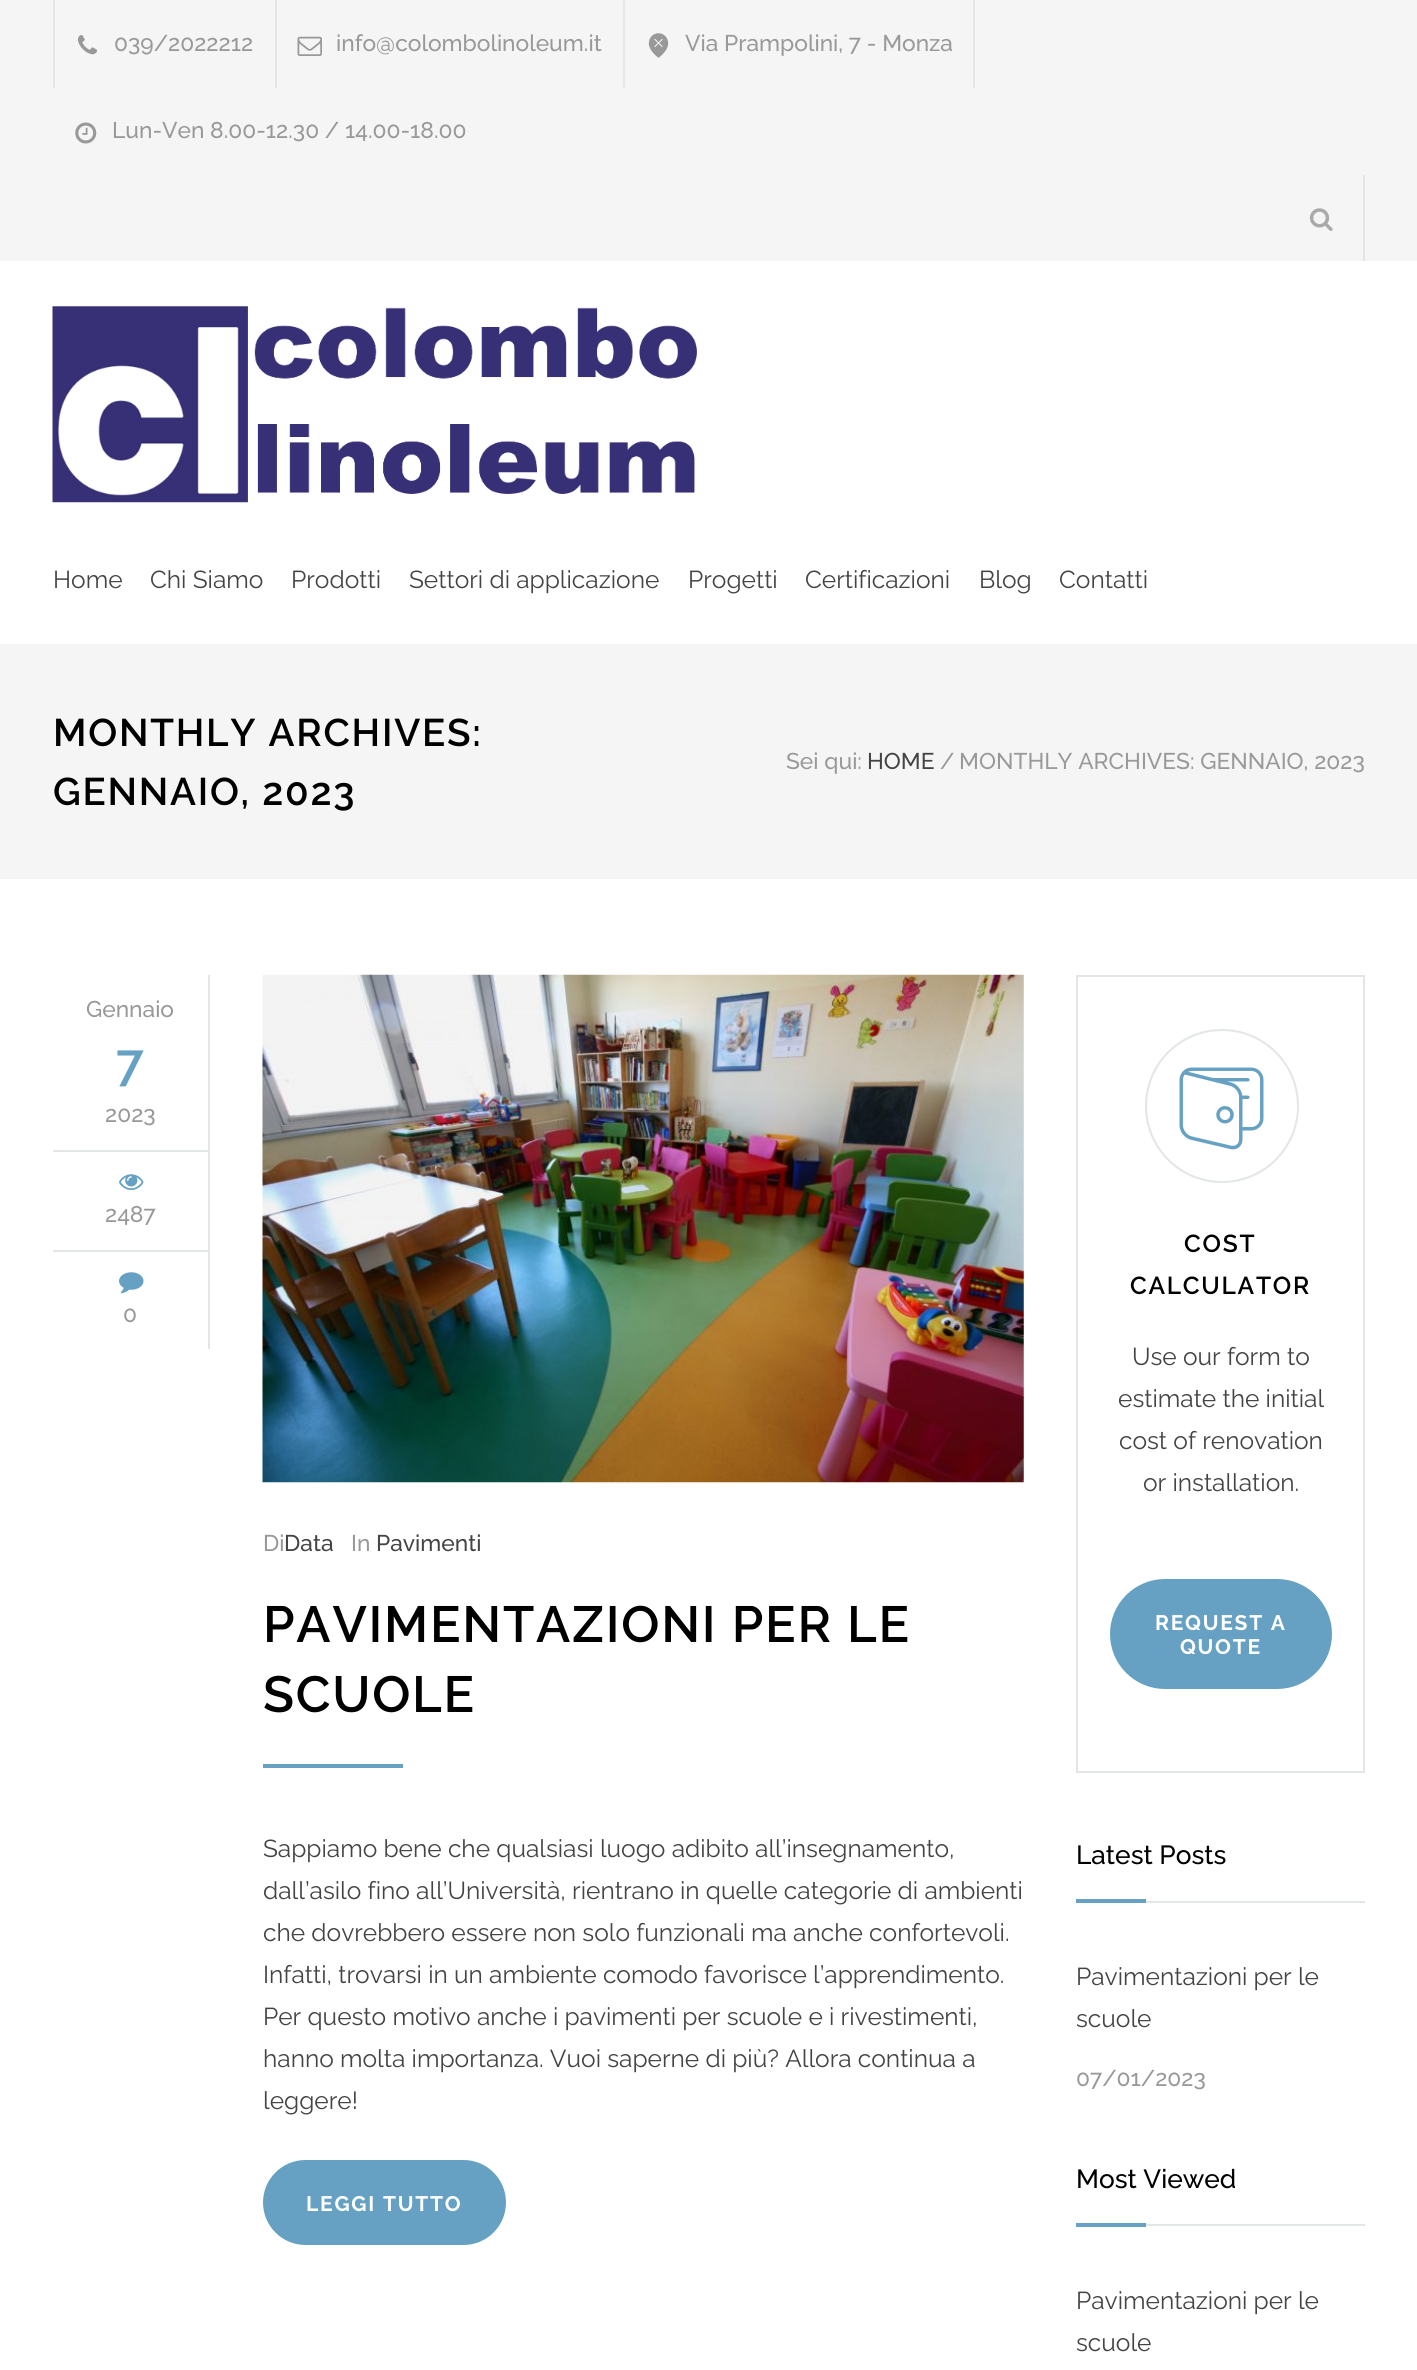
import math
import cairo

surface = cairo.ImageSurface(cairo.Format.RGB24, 1417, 2370)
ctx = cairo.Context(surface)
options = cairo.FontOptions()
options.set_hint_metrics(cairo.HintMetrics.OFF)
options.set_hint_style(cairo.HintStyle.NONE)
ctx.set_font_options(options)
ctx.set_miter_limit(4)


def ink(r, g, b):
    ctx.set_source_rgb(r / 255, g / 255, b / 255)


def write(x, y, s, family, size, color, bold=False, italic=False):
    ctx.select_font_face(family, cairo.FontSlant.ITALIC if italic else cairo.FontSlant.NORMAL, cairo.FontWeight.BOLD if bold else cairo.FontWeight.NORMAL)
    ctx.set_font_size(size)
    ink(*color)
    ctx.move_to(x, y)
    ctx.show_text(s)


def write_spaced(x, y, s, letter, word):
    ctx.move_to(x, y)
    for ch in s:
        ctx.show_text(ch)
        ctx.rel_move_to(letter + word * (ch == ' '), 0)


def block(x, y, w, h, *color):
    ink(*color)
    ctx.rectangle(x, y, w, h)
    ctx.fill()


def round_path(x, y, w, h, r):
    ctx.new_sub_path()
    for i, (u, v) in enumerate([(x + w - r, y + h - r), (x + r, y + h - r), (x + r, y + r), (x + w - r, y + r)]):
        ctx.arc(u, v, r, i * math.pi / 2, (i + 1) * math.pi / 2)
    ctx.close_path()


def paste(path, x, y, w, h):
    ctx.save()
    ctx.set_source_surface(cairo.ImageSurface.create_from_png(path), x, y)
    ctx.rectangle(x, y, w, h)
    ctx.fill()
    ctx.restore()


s1 = dict(family="Raleway Medium", size=22.75, color=(153, 153, 153))
s2 = dict(family="Raleway", size=24.5, color=(68, 68, 68))
s3 = dict(family="Raleway Medium", size=22.75, color=(68, 68, 68))
s4 = dict(family="Raleway Medium", size=26.25, color=(0, 0, 0))

ink(255, 255, 255)
ctx.paint()
block(0, 0, 1417, 261, 245, 245, 245)
block(275, 0, 2, 88, 226, 230, 231)
block(53, 0, 2, 88, 226, 230, 231)
paste("pic1.png", 77, 35, 21, 20)
write(114, 51, "039/2022212", **s1)
block(623, 0, 2, 88, 226, 230, 231)
paste("pic2.png", 297, 36, 25, 20)
write(336, 51, "info@colombolinoleum.it", **s1)
block(973, 0, 2, 88, 226, 230, 231)
paste("pic3.png", 648, 33, 21, 25)
write(685, 51, "Via Prampolini, 7 - Monza", **s1)
paste("pic4.png", 75, 122, 22, 22)
write(112, 138, "Lun-Ven 8.00-12.30 / 14.00-18.00", **s1)
block(1363, 175, 2, 86, 226, 230, 231)
paste("pic5.png", 1309, 208, 24, 23)
paste("pic6.png", 52, 306, 645, 197)
write(53, 588, "Home", **s2)
write(150, 588, "Chi Siamo", **s2)
write(291, 588, "Prodotti", **s2)
write(409, 588, "Settori di applicazione", **s2)
write(688, 588, "Progetti", **s2)
write(805, 588, "Certificazioni", **s2)
write(979, 588, "Blog", **s2)
write(1059, 588, "Contatti", **s2)
block(0, 644, 1417, 235, 245, 245, 245)
ctx.select_font_face("Raleway SemiBold")
ctx.set_font_size(38.5)
ink(0, 0, 0)
write_spaced(53, 746, "MONTHLY ARCHIVES:", 1.75, 0)
write_spaced(53, 805, "GENNAIO, 2023", 1.75, 0)
write(786, 769, "Sei qui:", **s1)
write(867, 769, "HOME", **s3)
write(940, 769, "/", **s1)
write(959, 769, "MONTHLY ARCHIVES: GENNAIO, 2023", **s1)
block(208, 975, 2, 175, 226, 230, 231)
write(86, 1017, "Gennaio", **s1)
ctx.select_font_face("Raleway SemiBold")
ctx.set_font_size(50.75)
ink(102, 161, 195)
write_spaced(116, 1080, "7", 1.75, 0)
write(105, 1122, "2023", **s1)
block(53, 1150, 157, 2, 226, 230, 231)
block(208, 1150, 2, 100, 226, 230, 231)
paste("pic7.png", 119, 1174, 25, 16)
write(105, 1222, "2487", **s1)
block(53, 1250, 157, 2, 226, 230, 231)
block(208, 1250, 2, 99, 226, 230, 231)
paste("pic8.png", 119, 1272, 25, 22)
write(123, 1322, "0", **s1)
paste("pic9.png", 262, 974, 762, 509)
write(263, 1551, "Di", **s1)
write(284, 1551, "Data", **s3)
write(351, 1551, "In", **s1)
write(376, 1551, "Pavimenti", **s3)
ctx.select_font_face("Raleway SemiBold")
ctx.set_font_size(50.75)
ink(0, 0, 0)
write_spaced(263, 1642, "PAVIMENTAZIONI PER LE", 1.75, 0)
write_spaced(263, 1712, "SCUOLE", 1.75, 0)
block(263, 1764, 140, 4, 102, 161, 195)
write(263, 1857, "Sappiamo bene che qualsiasi luogo adibito all’insegnamento,", **s2)
write(263, 1899, "dall’asilo fino all’Università, rientrano in quelle categorie di ambienti", **s2)
write(263, 1941, "che dovrebbero essere non solo funzionali ma anche confortevoli.", **s2)
write(263, 1983, "Infatti, trovarsi in un ambiente comodo favorisce l’apprendimento.", **s2)
write(263, 2025, "Per questo motivo anche i pavimenti per scuole e i rivestimenti,", **s2)
write(263, 2067, "hanno molta importanza. Vuoi saperne di più? Allora continua a", **s2)
write(263, 2109, "leggere!", **s2)
ink(102, 161, 195)
round_path(265, 2162, 239, 81, 40.5)
ctx.fill_preserve()
ctx.set_line_width(4)
ctx.stroke()
ctx.select_font_face("Raleway", cairo.FontSlant.NORMAL, cairo.FontWeight.BOLD)
ctx.set_font_size(21)
ink(255, 255, 255)
write_spaced(306, 2211, "LEGGI TUTTO", 1.75, 0)
ctx.rectangle(1077, 976, 287, 796)
ink(226, 230, 231)
ctx.set_line_width(2)
ctx.stroke()
ctx.arc(1222, 1106, 76, 0, 2 * math.pi)
ctx.stroke()
paste("pic10.png", 1179, 1067, 85, 83)
ctx.select_font_face("Raleway SemiBold")
ctx.set_font_size(24.5)
ink(0, 0, 0)
write_spaced(1184, 1252, "COST", 1.75, 0)
write_spaced(1130, 1294, "CALCULATOR", 1.75, 0)
write(1132, 1365, "Use our form to", **s2)
write(1118, 1407, "estimate the initial", **s2)
write(1119, 1449, "cost of renovation", **s2)
write(1143, 1491, "or installation.", **s2)
ink(102, 161, 195)
round_path(1112, 1581, 218, 106, 53)
ctx.fill_preserve()
ctx.set_line_width(4)
ctx.stroke()
ctx.select_font_face("Raleway", cairo.FontSlant.NORMAL, cairo.FontWeight.BOLD)
ctx.set_font_size(21)
ink(255, 255, 255)
write_spaced(1155, 1630, "REQUEST A", 1.75, 0)
write_spaced(1180, 1654, "QUOTE", 1.75, 0)
block(1146, 1901, 219, 2, 226, 230, 231)
write(1076, 1864, "Latest Posts", **s4)
block(1076, 1899, 70, 4, 102, 161, 195)
write(1076, 1985, "Pavimentazioni per le", **s2)
write(1076, 2027, "scuole", **s2)
write(1076, 2086, "07/01/2023", **s1)
block(1146, 2224, 219, 2, 226, 230, 231)
write(1076, 2188, "Most Viewed", **s4)
block(1076, 2223, 70, 4, 102, 161, 195)
write(1076, 2309, "Pavimentazioni per le", **s2)
write(1076, 2351, "scuole", **s2)
surface.write_to_png("screenshot.png")
